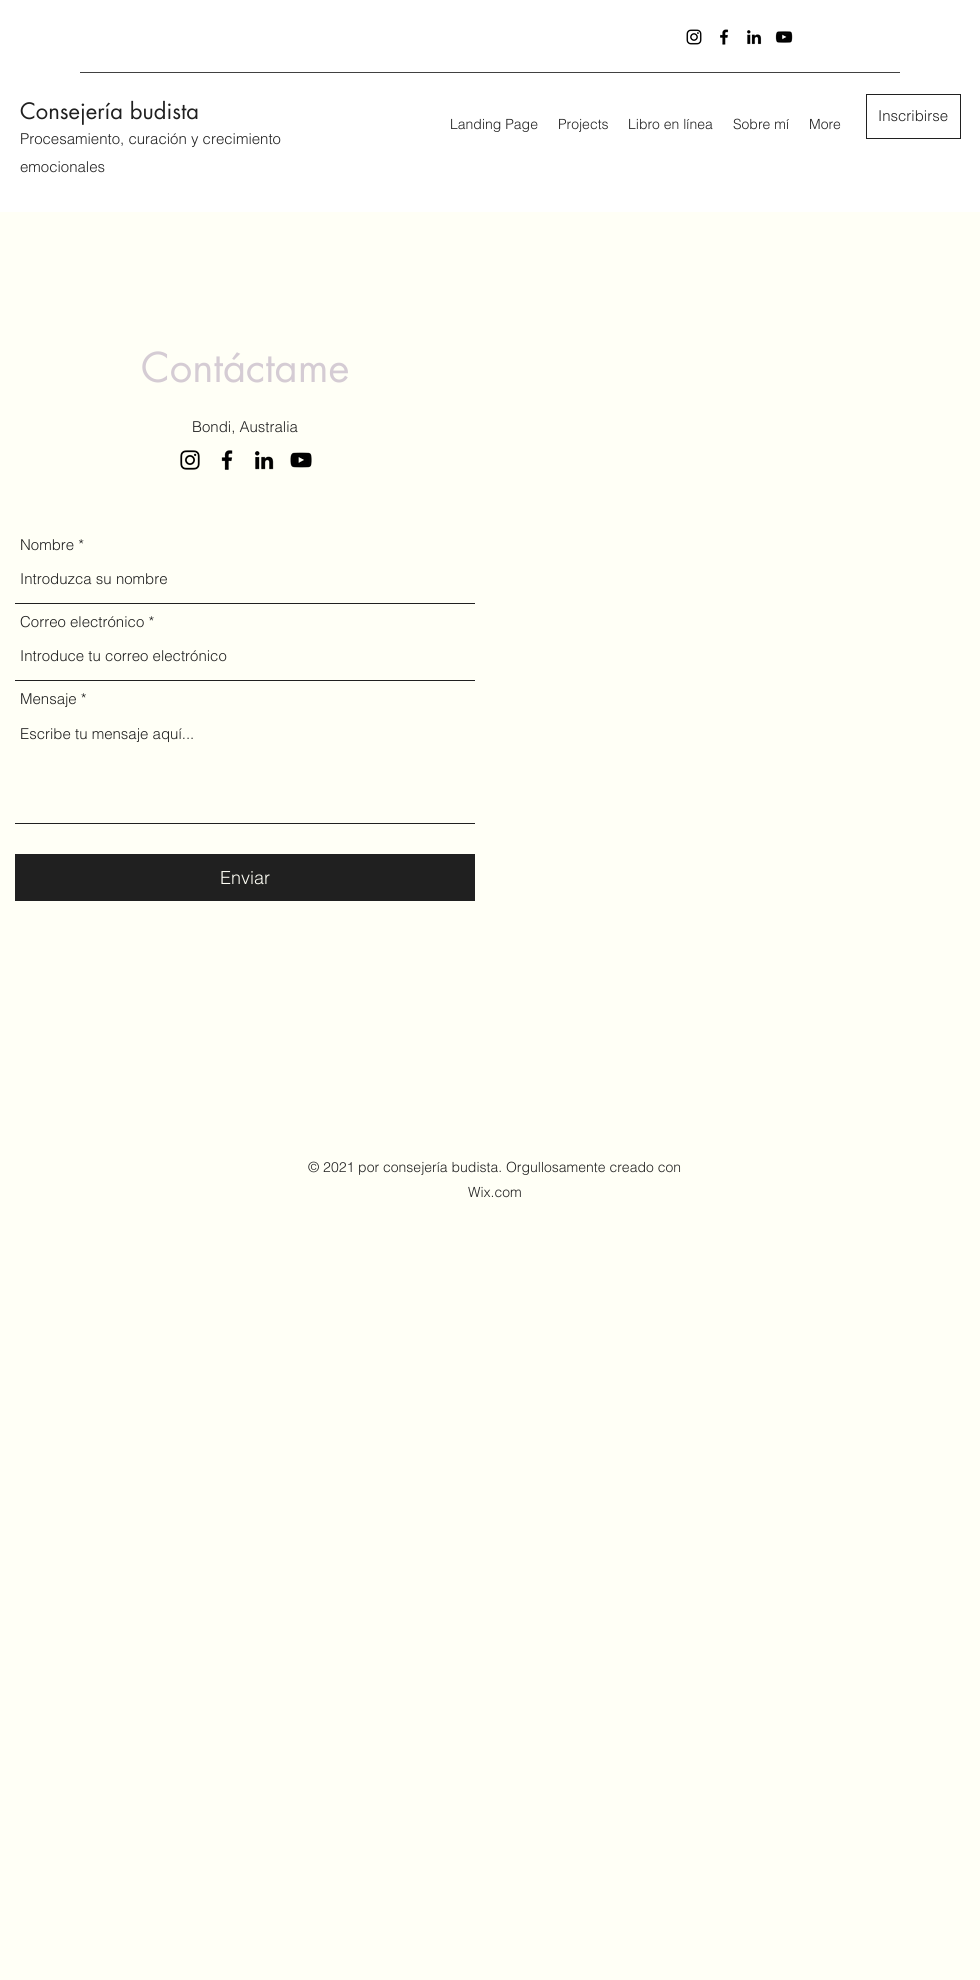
import math
import cairo

surface = cairo.ImageSurface(cairo.Format.RGB24, 980, 1980)
ctx = cairo.Context(surface)
options = cairo.FontOptions()
options.set_hint_metrics(cairo.HintMetrics.OFF)
options.set_hint_style(cairo.HintStyle.NONE)
ctx.set_font_options(options)
ctx.set_miter_limit(4)


def ink(r, g, b):
    ctx.set_source_rgb(r / 255, g / 255, b / 255)


def write(x, y, s, family, size, color, bold=False, italic=False):
    ctx.select_font_face(family, cairo.FontSlant.ITALIC if italic else cairo.FontSlant.NORMAL, cairo.FontWeight.BOLD if bold else cairo.FontWeight.NORMAL)
    ctx.set_font_size(size)
    ink(*color)
    ctx.move_to(x, y)
    ctx.show_text(s)


def block(x, y, w, h, *color):
    ink(*color)
    ctx.rectangle(x, y, w, h)
    ctx.fill()


def paste(path, x, y, w, h):
    ctx.save()
    ctx.set_source_surface(cairo.ImageSurface.create_from_png(path), x, y)
    ctx.rectangle(x, y, w, h)
    ctx.fill()
    ctx.restore()


s1 = dict(family="futura", size=22, color=(32, 32, 32))
s2 = dict(family="helvetica Light", size=15, color=(32, 32, 32))
s3 = dict(family="helvetica Light", size=14, color=(32, 32, 32))
s4 = dict(family="futura", size=40, color=(213, 204, 212))
s5 = dict(family="helvetica Light", size=18, color=(255, 255, 246))

ink(255, 255, 246)
ctx.paint()
block(0, 0, 980, 212, 255, 255, 255)
paste("pic1.png", 686, 29, 16, 16)
paste("pic2.png", 720, 29, 9, 16)
paste("pic3.png", 747, 30, 15, 15)
paste("pic4.png", 775, 31, 18, 12)
block(80, 72, 820, 1, 65, 65, 65)
write(20, 119, "Consejería budista", **s1)
write(20, 144, "Procesamiento, curación y crecimiento", **s2)
write(20, 172, "emocionales", **s2)
ctx.rectangle(866.5, 94.5, 94, 44)
ctx.set_line_width(1)
ctx.stroke()
write(878, 121, "Inscribirse", **s2)
write(450, 129, "Landing Page", **s3)
write(558, 129, "Projects", **s3)
write(628, 129, "Libro en línea", **s3)
write(733, 129, "Sobre mí", **s3)
write(809, 129, "More", **s3)
write(141, 382, "Contáctame", **s4)
write(192, 432, "Bondi, Australia", **s2)
paste("pic5.png", 180, 450, 20, 20)
paste("pic6.png", 221, 450, 12, 20)
paste("pic7.png", 254, 451, 20, 19)
paste("pic8.png", 290, 452, 22, 16)
write(20, 550, "Nombre *", **s2)
block(15, 603, 460, 1, 32, 32, 32)
write(20, 584, "Introduzca su nombre", **s2)
write(20, 627, "Correo electrónico *", **s2)
block(15, 680, 460, 1, 32, 32, 32)
write(20, 661, "Introduce tu correo electrónico", **s2)
write(20, 704, "Mensaje *", **s2)
block(15, 823, 460, 1, 32, 32, 32)
write(20, 739, "Escribe tu mensaje aquí...", **s2)
block(15, 854, 460, 47, 32, 32, 32)
write(220, 884, "Enviar", **s5)
write(308, 1172, "© 2021 por consejería budista. Orgullosamente creado con", **s3)
write(468, 1197, "Wix.com", **s3)
surface.write_to_png("screenshot.png")
